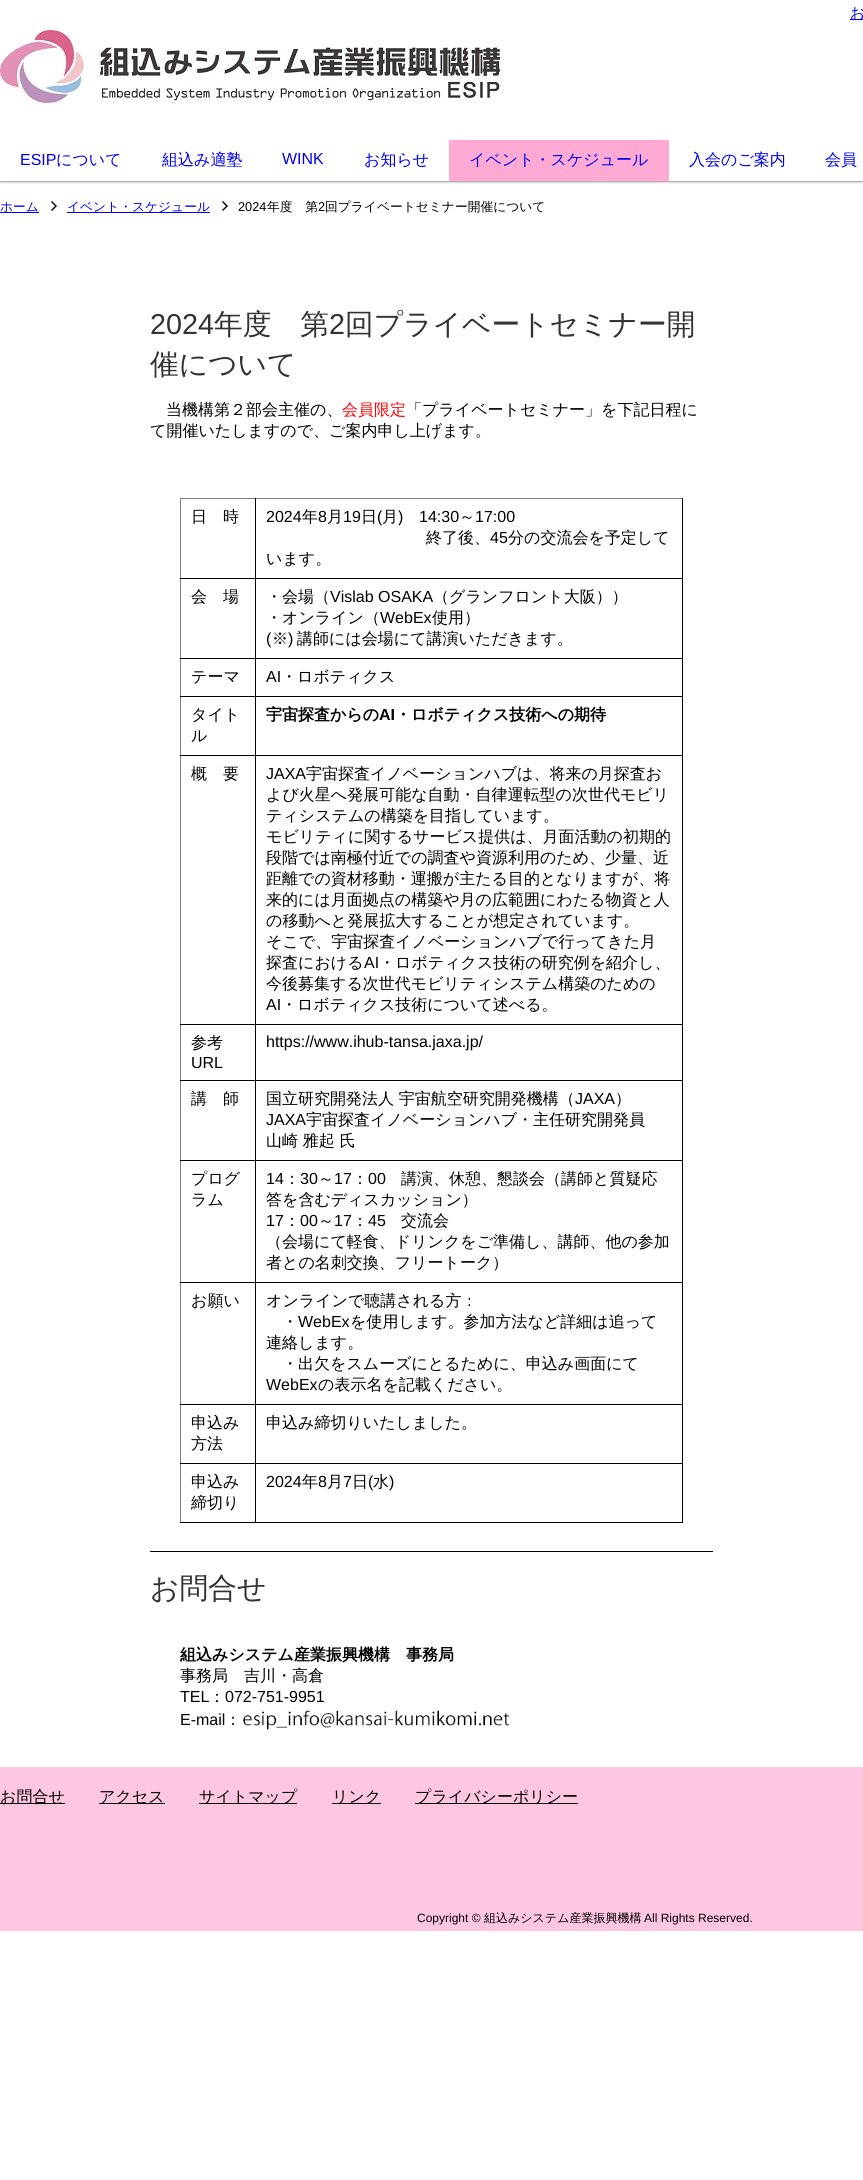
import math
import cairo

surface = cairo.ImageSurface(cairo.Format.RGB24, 863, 2180)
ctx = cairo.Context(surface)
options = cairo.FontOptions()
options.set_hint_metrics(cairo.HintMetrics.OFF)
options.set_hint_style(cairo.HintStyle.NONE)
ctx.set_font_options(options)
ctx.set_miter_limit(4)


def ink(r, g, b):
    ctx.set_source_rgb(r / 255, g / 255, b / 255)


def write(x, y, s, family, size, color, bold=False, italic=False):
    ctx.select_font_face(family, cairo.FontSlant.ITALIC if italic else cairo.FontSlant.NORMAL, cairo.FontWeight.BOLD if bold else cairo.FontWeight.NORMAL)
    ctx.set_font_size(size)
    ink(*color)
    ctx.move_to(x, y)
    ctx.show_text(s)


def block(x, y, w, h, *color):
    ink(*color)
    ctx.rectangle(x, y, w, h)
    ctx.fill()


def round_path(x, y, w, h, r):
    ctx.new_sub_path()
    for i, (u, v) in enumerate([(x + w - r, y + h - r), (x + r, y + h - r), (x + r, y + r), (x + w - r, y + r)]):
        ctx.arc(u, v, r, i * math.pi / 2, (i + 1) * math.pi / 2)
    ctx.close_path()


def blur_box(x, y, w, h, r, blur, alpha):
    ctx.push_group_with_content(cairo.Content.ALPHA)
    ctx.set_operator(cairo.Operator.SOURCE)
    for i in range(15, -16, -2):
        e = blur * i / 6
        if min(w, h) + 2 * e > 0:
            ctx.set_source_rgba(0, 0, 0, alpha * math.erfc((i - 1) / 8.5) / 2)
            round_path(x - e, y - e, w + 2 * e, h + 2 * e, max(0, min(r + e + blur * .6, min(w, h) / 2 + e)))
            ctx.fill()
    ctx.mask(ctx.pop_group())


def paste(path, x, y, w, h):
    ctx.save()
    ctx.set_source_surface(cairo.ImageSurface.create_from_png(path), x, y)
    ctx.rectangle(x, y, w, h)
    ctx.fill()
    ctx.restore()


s1 = dict(family="WenQuanYi Zen Hei Medium", size=15, color=(0, 0, 238))
s2 = dict(family="Liberation Sans", size=16, color=(0, 0, 238))
s3 = dict(family="WenQuanYi Zen Hei Medium", size=16, color=(0, 0, 238))
s4 = dict(family="WenQuanYi Zen Hei Medium", size=12.75, color=(0, 0, 238))
s5 = dict(family="Liberation Sans", size=12.75, color=(0, 0, 0))
s6 = dict(family="WenQuanYi Zen Hei Medium", size=12.75, color=(0, 0, 0))
s7 = dict(family="Liberation Sans", size=28.75, color=(51, 51, 51))
s8 = dict(family="WenQuanYi Zen Hei Medium", size=28.75, color=(51, 51, 51))
s9 = dict(family="WenQuanYi Zen Hei Medium", size=16, color=(0, 0, 0))
s10 = dict(family="WenQuanYi Zen Hei Medium", size=16, color=(255, 0, 0))
s11 = dict(family="Liberation Sans", size=16, color=(0, 0, 0))
s12 = dict(family="WenQuanYi Zen Hei", size=16, color=(0, 0, 0), bold=True)
s13 = dict(family="Liberation Sans", size=16, color=(0, 0, 0), bold=True)
s14 = dict(family="Liberation Sans", size=12, color=(0, 0, 0))
s15 = dict(family="WenQuanYi Zen Hei Medium", size=12, color=(0, 0, 0))

ink(255, 255, 255)
ctx.paint()
block(850, 19, 13, 1, 0, 0, 238)
write(850, 18, "お", **s1)
paste("pic1.png", 0, 30, 500, 73)
ctx.save()
ctx.rectangle(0, 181, 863, 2)
ctx.clip()
ink(0, 0, 0)
blur_box(0, 141, 863, 41, 0, 0.5, 0.24)
ctx.restore()
ctx.save()
ctx.rectangle(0, 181, 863, 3)
ctx.clip()
ink(0, 0, 0)
blur_box(0, 142, 863, 41, 0, 1, 0.12)
ctx.restore()
write(20, 165, "ESIP", **s2)
write(56, 165, "について", **s3)
write(162, 165, "組込み適塾", **s3)
write(282, 164, "WINK", **s2)
write(364, 165, "お知らせ", **s3)
block(449, 140, 220, 41, 255, 170, 212)
write(469, 165, "イベント・スケジュール", **s3)
write(689, 165, "入会のご案内", **s3)
write(825, 165, "会員", **s3)
block(0, 212, 39, 1, 0, 0, 238)
write(0, 211, "ホーム", **s4)
paste("pic2.png", 51, 201, 6, 10)
block(67, 212, 143, 1, 0, 0, 238)
write(67, 211, "イベント・スケジュール", **s4)
paste("pic2.png", 222, 201, 6, 10)
write(238, 211, "2024", **s5)
write(267, 211, "年度　第", **s6)
write(318, 211, "2", **s5)
write(325, 211, "回プライベートセミナー開催について", **s6)
write(150, 334, "2024", **s7)
write(214, 334, "年度　第", **s8)
write(329, 334, "2", **s7)
write(345, 334, "回プライベートセミナー開", **s8)
write(150, 374, "催について", **s8)
write(166, 415, "当機構第２部会主催の、", **s9)
write(342, 415, "会員限定", **s10)
write(406, 415, "「プライベートセミナー」を下記日程に", **s9)
write(150, 436, "て開催いたしますので、ご案内申し上げます。", **s9)
block(180, 498, 503, 1, 128, 128, 128)
block(180, 498, 1, 1025, 128, 128, 128)
block(682, 498, 1, 1025, 0, 0, 0)
block(255, 1522, 428, 1, 0, 0, 0)
block(255, 1463, 1, 60, 0, 0, 0)
block(255, 1463, 428, 1, 0, 0, 0)
block(255, 1404, 1, 60, 0, 0, 0)
block(255, 1404, 428, 1, 0, 0, 0)
block(255, 1282, 1, 123, 0, 0, 0)
block(255, 1282, 428, 1, 0, 0, 0)
block(255, 1160, 1, 123, 0, 0, 0)
block(255, 1160, 428, 1, 0, 0, 0)
block(255, 1080, 1, 81, 0, 0, 0)
block(255, 1080, 428, 1, 0, 0, 0)
block(255, 1024, 1, 57, 0, 0, 0)
block(255, 1024, 428, 1, 0, 0, 0)
block(255, 755, 1, 270, 0, 0, 0)
block(255, 755, 428, 1, 0, 0, 0)
block(255, 696, 1, 60, 0, 0, 0)
block(255, 696, 428, 1, 0, 0, 0)
block(255, 658, 1, 39, 0, 0, 0)
block(255, 658, 428, 1, 0, 0, 0)
block(255, 578, 1, 81, 0, 0, 0)
block(255, 578, 428, 1, 0, 0, 0)
block(255, 498, 1, 81, 0, 0, 0)
block(180, 578, 76, 1, 0, 0, 0)
write(191, 522, "日　時", **s9)
write(266, 522, "2024", **s11)
write(302, 522, "年", **s9)
write(318, 522, "8", **s11)
write(327, 522, "月", **s9)
write(343, 522, "19", **s11)
write(361, 522, "日", **s9)
write(377, 522, "(", **s11)
write(382, 522, "月", **s9)
write(398, 522, ")", **s11)
write(419, 522, "14:30", **s11)
write(459, 522, "～", **s9)
write(475, 522, "17:00", **s11)
write(426, 543, "終了後、", **s9)
write(490, 543, "45", **s11)
write(508, 543, "分の交流会を予定して", **s9)
write(266, 564, "います。", **s9)
block(180, 658, 76, 1, 0, 0, 0)
write(191, 602, "会　場", **s9)
write(266, 602, "・会場（", **s9)
write(330, 602, "Vislab OSAKA", **s11)
write(433, 602, "（グランフロント大阪））", **s9)
write(266, 623, "・オンライン（", **s9)
write(380, 623, "WebEx", **s11)
write(432, 623, "使用）", **s9)
write(266, 644, "(", **s11)
write(272, 644, "※", **s9)
write(288, 644, ")", **s11)
write(297, 644, "講師には会場にて講演いただきます。", **s9)
block(180, 696, 76, 1, 0, 0, 0)
write(191, 682, "テーマ", **s9)
write(266, 682, "AI", **s11)
write(281, 682, "・ロボティクス", **s9)
block(180, 755, 76, 1, 0, 0, 0)
write(191, 720, "タイト", **s9)
write(191, 741, "ル", **s9)
write(266, 720, "宇宙探査からの", **s12)
write(379, 720, "AI", **s13)
write(395, 720, "・ロボティクス技術への期待", **s12)
block(180, 1024, 76, 1, 0, 0, 0)
write(191, 779, "概　要", **s9)
write(266, 779, "JAXA", **s11)
write(306, 779, "宇宙探査イノベーションハブは、将来の月探査お", **s9)
write(266, 800, "よび火星へ発展可能な自動・自律運転型の次世代モビリ", **s9)
write(266, 821, "ティシステムの構築を目指しています。", **s9)
write(266, 842, "モビリティに関するサービス提供は、月面活動の初期的", **s9)
write(266, 863, "段階では南極付近での調査や資源利用のため、少量、近", **s9)
write(266, 884, "距離での資材移動・運搬が主たる目的となりますが、将", **s9)
write(266, 905, "来的には月面拠点の構築や月の広範囲にわたる物資と人", **s9)
write(266, 926, "の移動へと発展拡大することが想定されています。", **s9)
write(266, 947, "そこで、宇宙探査イノベーションハブで行ってきた月", **s9)
write(266, 968, "探査における", **s9)
write(364, 968, "AI", **s11)
write(379, 968, "・ロボティクス技術の研究例を紹介し、", **s9)
write(266, 989, "今後募集する次世代モビリティシステム構築のための", **s9)
write(266, 1010, "AI", **s11)
write(281, 1010, "・ロボティクス技術について述べる。", **s9)
block(180, 1080, 76, 1, 0, 0, 0)
write(191, 1048, "参考", **s9)
write(191, 1068, "URL", **s11)
write(266, 1047, "https://www.ihub-tansa.jaxa.jp/", **s11)
block(180, 1160, 76, 1, 0, 0, 0)
write(191, 1104, "講　師", **s9)
write(266, 1104, "国立研究開発法人 宇宙航空研究開発機構（", **s9)
write(575, 1104, "JAXA", **s11)
write(615, 1104, "）", **s9)
write(266, 1125, "JAXA", **s11)
write(306, 1125, "宇宙探査イノベーションハブ・主任研究開発員", **s9)
write(266, 1146, "山崎 雅起 氏", **s9)
block(180, 1282, 76, 1, 0, 0, 0)
write(191, 1184, "プログ", **s9)
write(191, 1205, "ラム", **s9)
write(266, 1184, "14", **s11)
write(284, 1184, "：", **s9)
write(300, 1184, "30", **s11)
write(318, 1184, "～", **s9)
write(334, 1184, "17", **s11)
write(352, 1184, "：", **s9)
write(368, 1184, "00", **s11)
write(401, 1184, "講演、休憩、懇談会（講師と質疑応", **s9)
write(266, 1205, "答を含むディスカッション）", **s9)
write(266, 1226, "17", **s11)
write(284, 1226, "：", **s9)
write(300, 1226, "00", **s11)
write(318, 1226, "～", **s9)
write(334, 1226, "17", **s11)
write(352, 1226, "：", **s9)
write(368, 1226, "45", **s11)
write(401, 1226, "交流会", **s9)
write(266, 1247, "（会場にて軽食、ドリンクをご準備し、講師、他の参加", **s9)
write(266, 1268, "者との名刺交換、フリートーク）", **s9)
block(180, 1404, 76, 1, 0, 0, 0)
write(191, 1306, "お願い", **s9)
write(266, 1306, "オンラインで聴講される方：", **s9)
write(282, 1327, "・", **s9)
write(298, 1327, "WebEx", **s11)
write(350, 1327, "を使用します。参加方法など詳細は追って", **s9)
write(266, 1348, "連絡します。", **s9)
write(282, 1369, "・出欠をスムーズにとるために、申込み画面にて", **s9)
write(266, 1390, "WebEx", **s11)
write(318, 1390, "の表示名を記載ください。", **s9)
block(180, 1463, 76, 1, 0, 0, 0)
write(191, 1428, "申込み", **s9)
write(191, 1449, "方法", **s9)
write(266, 1428, "申込み締切りいたしました。", **s9)
block(180, 1522, 76, 1, 0, 0, 0)
write(191, 1487, "申込み", **s9)
write(191, 1508, "締切り", **s9)
write(266, 1487, "2024", **s11)
write(302, 1487, "年", **s9)
write(318, 1487, "8", **s11)
write(327, 1487, "月", **s9)
write(343, 1487, "7", **s11)
write(352, 1487, "日", **s9)
write(368, 1487, "(", **s11)
write(373, 1487, "水", **s9)
write(389, 1487, ")", **s11)
block(150, 1551, 563, 1, 0, 0, 0)
write(150, 1598, "お問合せ", **s8)
write(180, 1660, "組込みシステム産業振興機構　事務局", **s12)
write(180, 1681, "事務局　吉川・高倉", **s9)
write(180, 1702, "TEL", **s11)
write(209, 1702, "：", **s9)
write(225, 1702, "072-751-9951", **s11)
write(180, 1725, "E-mail", **s11)
write(225, 1725, "：", **s9)
paste("pic3.png", 243, 1710, 267, 20)
block(0, 1767, 863, 164, 255, 198, 226)
block(0, 1803, 65, 1, 0, 0, 0)
write(0, 1802, "お問合せ", **s9)
block(99, 1803, 66, 1, 0, 0, 0)
write(99, 1802, "アクセス", **s9)
block(199, 1803, 98, 1, 0, 0, 0)
write(199, 1802, "サイトマップ", **s9)
block(332, 1803, 49, 1, 0, 0, 0)
write(332, 1802, "リンク", **s9)
block(415, 1803, 163, 1, 0, 0, 0)
write(415, 1802, "プライバシーポリシー", **s9)
write(417, 1922, "Copyright ©", **s14)
write(484, 1922, "組込みシステム産業振興機構", **s15)
write(644, 1922, "All Rights Reserved.", **s14)
surface.write_to_png("screenshot.png")
